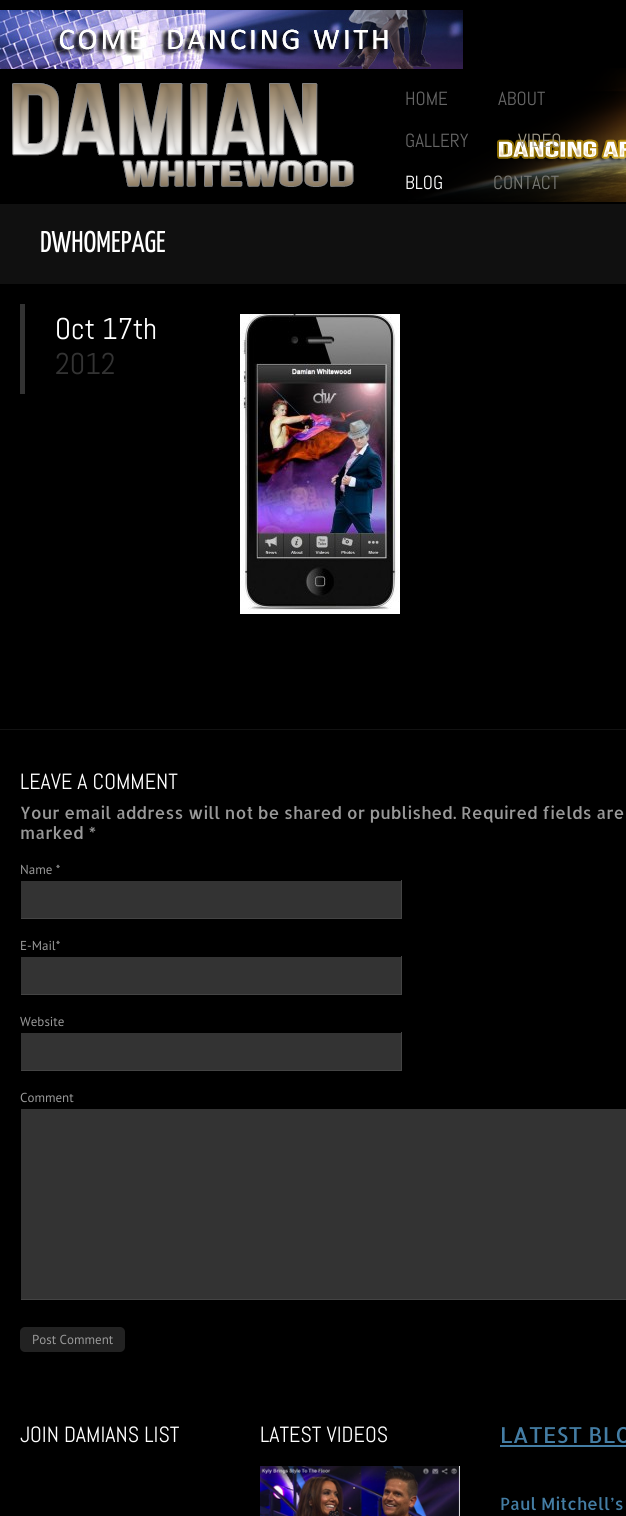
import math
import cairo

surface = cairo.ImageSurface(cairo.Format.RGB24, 626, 1516)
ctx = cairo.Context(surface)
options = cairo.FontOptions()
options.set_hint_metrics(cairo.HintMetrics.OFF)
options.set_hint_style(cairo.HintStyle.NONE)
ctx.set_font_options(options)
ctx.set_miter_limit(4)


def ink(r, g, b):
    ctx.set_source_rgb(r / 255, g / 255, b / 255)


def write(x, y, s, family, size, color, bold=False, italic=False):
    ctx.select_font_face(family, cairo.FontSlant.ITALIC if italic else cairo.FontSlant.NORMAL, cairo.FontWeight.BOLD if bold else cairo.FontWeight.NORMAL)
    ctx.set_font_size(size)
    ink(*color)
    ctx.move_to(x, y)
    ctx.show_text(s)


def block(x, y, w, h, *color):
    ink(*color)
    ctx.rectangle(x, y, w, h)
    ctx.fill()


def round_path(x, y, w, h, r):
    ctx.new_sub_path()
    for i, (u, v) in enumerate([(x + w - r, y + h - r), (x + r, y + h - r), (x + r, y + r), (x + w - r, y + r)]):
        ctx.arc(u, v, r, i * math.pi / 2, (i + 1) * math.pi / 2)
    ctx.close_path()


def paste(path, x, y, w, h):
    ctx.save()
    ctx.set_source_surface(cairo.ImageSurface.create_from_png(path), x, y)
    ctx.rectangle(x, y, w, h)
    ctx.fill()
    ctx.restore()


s1 = dict(family="Abel", size=19, color=(102, 102, 102))
s2 = dict(family="Abel", size=19, color=(162, 156, 138))
s3 = dict(family="Abel", size=19, color=(255, 255, 255))
s4 = dict(family="Abel", size=19, color=(120, 121, 117))
s5 = dict(family="Yanone Kaffeesatz ExtraLight", size=30, color=(255, 255, 255))
s6 = dict(family="Abel", size=30, color=(255, 255, 255))
s7 = dict(family="Abel", size=30, color=(51, 51, 51))
s8 = dict(family="Abel", size=22, color=(255, 255, 255))
s9 = dict(family="Allerta", size=17, color=(153, 153, 153))
s10 = dict(family="PT Sans", size=13, color=(153, 153, 153))
s11 = dict(family="Allerta", size=22, color=(68, 125, 164))
s12 = dict(family="Allerta", size=17, color=(68, 125, 164))

ink(0, 0, 0)
ctx.paint()
paste("pic2.png", 12, 68, 614, 134)
paste("pic1.png", 0, 10, 463, 59)
write(405, 105, "HOME", **s1)
write(498, 105, "ABOUT", **s1)
write(405, 147, "GALLERY", **s1)
write(518, 147, "VIDEO", **s2)
write(405, 189, "BLOG", **s3)
write(493, 189, "CONTACT", **s4)
block(0, 204, 626, 80, 16, 16, 16)
write(40, 252, "DWHOMEPAGE", **s5)
block(20, 304, 5, 90, 51, 51, 51)
write(55, 339, "Oct 17th", **s6)
write(55, 374, "2012", **s7)
paste("pic3.png", 240, 314, 160, 300)
block(0, 729, 626, 1, 18, 18, 18)
write(20, 789, "LEAVE A COMMENT", **s8)
write(20, 819, "Your email address will not be shared or published. Required fields are", **s9)
write(20, 839, "marked *", **s9)
write(20, 874, "Name *", **s10)
block(21, 881, 380, 37, 51, 51, 51)
block(401, 880, 1, 39, 68, 68, 68)
block(20, 918, 382, 1, 68, 68, 68)
block(20, 918, 1, 1, 0, 0, 0)
write(20, 950, "E-Mail*", **s10)
block(21, 957, 380, 37, 51, 51, 51)
block(401, 956, 1, 39, 68, 68, 68)
block(20, 994, 382, 1, 68, 68, 68)
block(20, 994, 1, 1, 0, 0, 0)
write(20, 1026, "Website", **s10)
block(21, 1033, 380, 37, 51, 51, 51)
block(401, 1032, 1, 39, 68, 68, 68)
block(20, 1070, 382, 1, 68, 68, 68)
block(20, 1070, 1, 1, 0, 0, 0)
write(20, 1102, "Comment", **s10)
block(21, 1109, 605, 190, 51, 51, 51)
block(20, 1299, 606, 1, 68, 68, 68)
block(20, 1299, 1, 1, 0, 0, 0)
ink(34, 34, 34)
round_path(20, 1327, 105, 25, 5)
ctx.fill()
write(32, 1344, "Post Comment", **s10)
write(20, 1442, "JOIN DAMIANS LIST", **s8)
write(260, 1442, "LATEST VIDEOS", **s8)
paste("pic4.png", 260, 1466, 200, 50)
write(500, 1443, "LATEST BLO", **s11)
block(500, 1445, 126, 2, 68, 125, 164)
write(500, 1510, "Paul Mitchell’s", **s12)
surface.write_to_png("screenshot.png")
